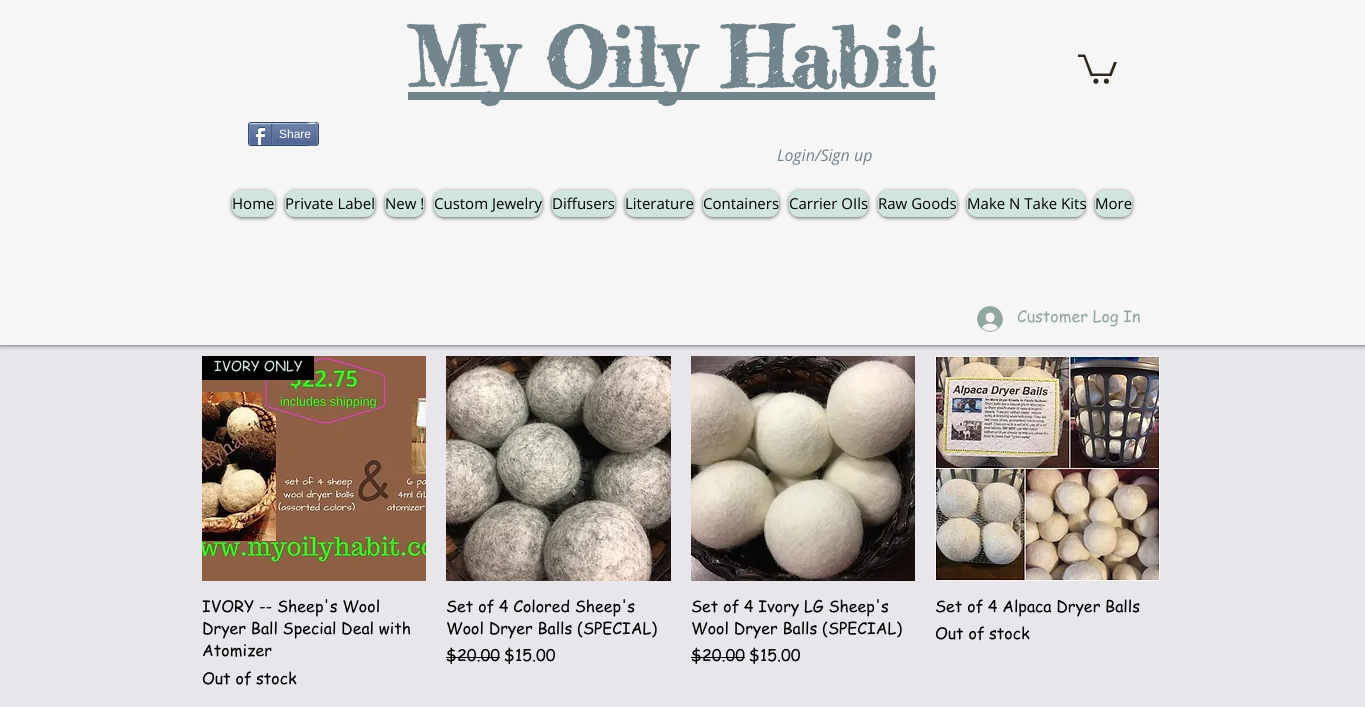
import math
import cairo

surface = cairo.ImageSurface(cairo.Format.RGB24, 1365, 707)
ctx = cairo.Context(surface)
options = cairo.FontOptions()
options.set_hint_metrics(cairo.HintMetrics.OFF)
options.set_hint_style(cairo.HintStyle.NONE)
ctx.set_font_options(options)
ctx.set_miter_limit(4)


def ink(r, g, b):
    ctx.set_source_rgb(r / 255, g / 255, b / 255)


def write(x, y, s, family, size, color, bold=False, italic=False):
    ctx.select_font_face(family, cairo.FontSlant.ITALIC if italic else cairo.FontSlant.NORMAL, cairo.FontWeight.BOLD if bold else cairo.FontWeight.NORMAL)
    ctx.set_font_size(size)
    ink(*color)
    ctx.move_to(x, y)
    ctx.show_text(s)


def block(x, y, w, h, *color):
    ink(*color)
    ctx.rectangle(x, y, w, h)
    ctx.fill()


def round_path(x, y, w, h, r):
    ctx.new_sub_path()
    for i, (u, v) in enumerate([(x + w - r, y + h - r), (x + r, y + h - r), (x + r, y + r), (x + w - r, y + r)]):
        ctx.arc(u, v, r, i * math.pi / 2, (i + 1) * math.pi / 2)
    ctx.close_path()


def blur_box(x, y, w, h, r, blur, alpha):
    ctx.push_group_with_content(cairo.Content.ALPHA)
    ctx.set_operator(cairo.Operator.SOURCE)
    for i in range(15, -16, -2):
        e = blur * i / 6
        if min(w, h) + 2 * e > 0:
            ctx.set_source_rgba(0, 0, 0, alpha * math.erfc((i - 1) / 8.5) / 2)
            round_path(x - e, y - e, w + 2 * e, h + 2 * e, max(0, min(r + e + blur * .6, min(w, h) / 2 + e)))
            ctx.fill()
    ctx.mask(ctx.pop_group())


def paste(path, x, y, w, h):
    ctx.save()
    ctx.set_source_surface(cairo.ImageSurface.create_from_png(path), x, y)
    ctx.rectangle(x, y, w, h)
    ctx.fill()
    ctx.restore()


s1 = dict(family="Fredericka the Great", size=81, color=(114, 133, 140), bold=True)
s2 = dict(family="Liberation Sans", size=12, color=(255, 255, 255))
s3 = dict(family="Open Sans", size=16, color=(114, 133, 140), italic=True)
s4 = dict(family="Open Sans", size=15, color=(0, 0, 0))
s5 = dict(family="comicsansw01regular", size=16, color=(146, 166, 162))
s6 = dict(family="comicsansw01regular", size=14, color=(208, 229, 222))
s7 = dict(family="comicsansw01regular", size=16, color=(0, 0, 0))

ink(233, 230, 235)
ctx.paint()
ink(0, 0, 0)
blur_box(0, 0, 1365, 345, 0, 2.5, 0.7)
block(0, 0, 1365, 345, 246, 246, 247)
block(408, 92, 527, 8, 114, 133, 140)
write(408, 87, "My Oily Habit", **s1)
ink(45, 39, 29)
ctx.new_path()
ctx.move_to(1117, 62)
ctx.line_to(1111.5, 76)
ctx.line_to(1090.5, 76)
ctx.line_to(1083.5, 57)
ctx.line_to(1078, 57)
ctx.line_to(1078, 54.5)
ctx.line_to(1085, 54.5)
ctx.line_to(1092.5, 73.5)
ctx.line_to(1109.5, 73.5)
ctx.line_to(1114, 62)
ctx.fill()
ctx.arc(1106.4, 81.2, 2.6, 0, 2 * math.pi)
ctx.fill()
ctx.arc(1095.9, 81.2, 2.6, 0, 2 * math.pi)
ctx.fill()
round_path(248.5, 122.5, 70, 23, 2.5)
ink(45, 69, 101)
ctx.set_line_width(1)
ctx.stroke()
paste("pic1.png", 249, 124, 69, 21)
ctx.new_path()
ctx.move_to(250, 124)
ctx.line_to(305, 123.5)
ctx.curve_to(309, 123.5, 314, 121, 317, 124)
ink(154, 171, 198)
ctx.stroke()
ctx.new_path()
ctx.move_to(317, 124)
ctx.curve_to(318, 124.5, 318, 143.5, 317, 144)
ink(111, 131, 173)
ctx.stroke()
ctx.new_path()
ctx.move_to(317, 144)
ctx.curve_to(314, 147, 309, 144.5, 305, 144.5)
ctx.line_to(250, 144)
ink(97, 118, 163)
ctx.stroke()
ctx.new_path()
ctx.move_to(250, 144)
ctx.curve_to(249, 143.5, 249, 124.5, 250, 124)
ink(111, 131, 173)
ctx.stroke()
paste("pic2.png", 255, 127, 10, 18)
block(271, 124, 1, 21, 66, 94, 133)
write(279, 138, "Share", **s2)
block(272, 124, 1, 20, 97, 118, 163)
write(777, 161, "Login/Sign up", **s3)
ink(0, 0, 0)
blur_box(232, 191, 43, 27, 10, 2, 0.6)
ink(208, 229, 222)
round_path(232, 190, 43, 27, 10)
ctx.fill()
write(232, 209, "Home", **s4)
ink(0, 0, 0)
blur_box(285, 191, 90, 27, 10, 2, 0.6)
ink(208, 229, 222)
round_path(285, 190, 90, 27, 10)
ctx.fill()
write(285, 209, "Private Label", **s4)
ink(0, 0, 0)
blur_box(385, 191, 39, 27, 10, 2, 0.6)
ink(208, 229, 222)
round_path(385, 190, 39, 27, 10)
ctx.fill()
write(385, 209, "New !", **s4)
ink(0, 0, 0)
blur_box(434, 191, 108, 27, 10, 2, 0.6)
ink(208, 229, 222)
round_path(434, 190, 108, 27, 10)
ctx.fill()
write(434, 209, "Custom Jewelry", **s4)
ink(0, 0, 0)
blur_box(552, 191, 63, 27, 10, 2, 0.6)
ink(208, 229, 222)
round_path(552, 190, 63, 27, 10)
ctx.fill()
write(552, 209, "Diffusers", **s4)
ink(0, 0, 0)
blur_box(625, 191, 68, 27, 10, 2, 0.6)
ink(208, 229, 222)
round_path(625, 190, 68, 27, 10)
ctx.fill()
write(625, 209, "Literature", **s4)
ink(0, 0, 0)
blur_box(703, 191, 76, 27, 10, 2, 0.6)
ink(208, 229, 222)
round_path(703, 190, 76, 27, 10)
ctx.fill()
write(703, 209, "Containers", **s4)
ink(0, 0, 0)
blur_box(789, 191, 79, 27, 10, 2, 0.6)
ink(208, 229, 222)
round_path(789, 190, 79, 27, 10)
ctx.fill()
write(789, 209, "Carrier OIls", **s4)
ink(0, 0, 0)
blur_box(878, 191, 79, 27, 10, 2, 0.6)
ink(208, 229, 222)
round_path(878, 190, 79, 27, 10)
ctx.fill()
write(878, 209, "Raw Goods", **s4)
ink(0, 0, 0)
blur_box(967, 191, 118, 27, 10, 2, 0.6)
ink(208, 229, 222)
round_path(967, 190, 118, 27, 10)
ctx.fill()
write(967, 209, "Make N Take Kits", **s4)
ink(0, 0, 0)
blur_box(1095, 191, 37, 27, 10, 2, 0.6)
ink(208, 229, 222)
round_path(1095, 190, 37, 27, 10)
ctx.fill()
write(1095, 209, "More", **s4)
paste("pic3.png", 977, 306, 26, 26)
write(1017, 322, "Customer Log In", **s5)
paste("pic4.png", 202, 356, 224, 225)
block(202, 356, 112, 24, 0, 0, 0)
write(214, 371, "IVORY ONLY", **s6)
write(202, 612, "IVORY -- Sheep's Wool", **s7)
write(202, 634, "Dryer Ball Special Deal with", **s7)
write(202, 656, "Atomizer", **s7)
write(202, 684, "Out of stock", **s7)
paste("pic5.png", 446, 356, 225, 225)
write(446, 612, "Set of 4 Colored Sheep's", **s7)
write(446, 634, "Wool Dryer Balls (SPECIAL)", **s7)
write(446, 661, "$20.00", **s7)
block(446, 657, 54, 1, 0, 0, 0)
write(504, 661, "$15.00", **s7)
paste("pic6.png", 691, 356, 224, 225)
write(691, 612, "Set of 4 Ivory LG Sheep's", **s7)
write(691, 634, "Wool Dryer Balls (SPECIAL)", **s7)
write(691, 661, "$20.00", **s7)
block(691, 657, 54, 1, 0, 0, 0)
write(749, 661, "$15.00", **s7)
paste("pic7.png", 935, 356, 225, 225)
write(935, 612, "Set of 4 Alpaca Dryer Balls", **s7)
write(935, 639, "Out of stock", **s7)
surface.write_to_png("screenshot.png")
